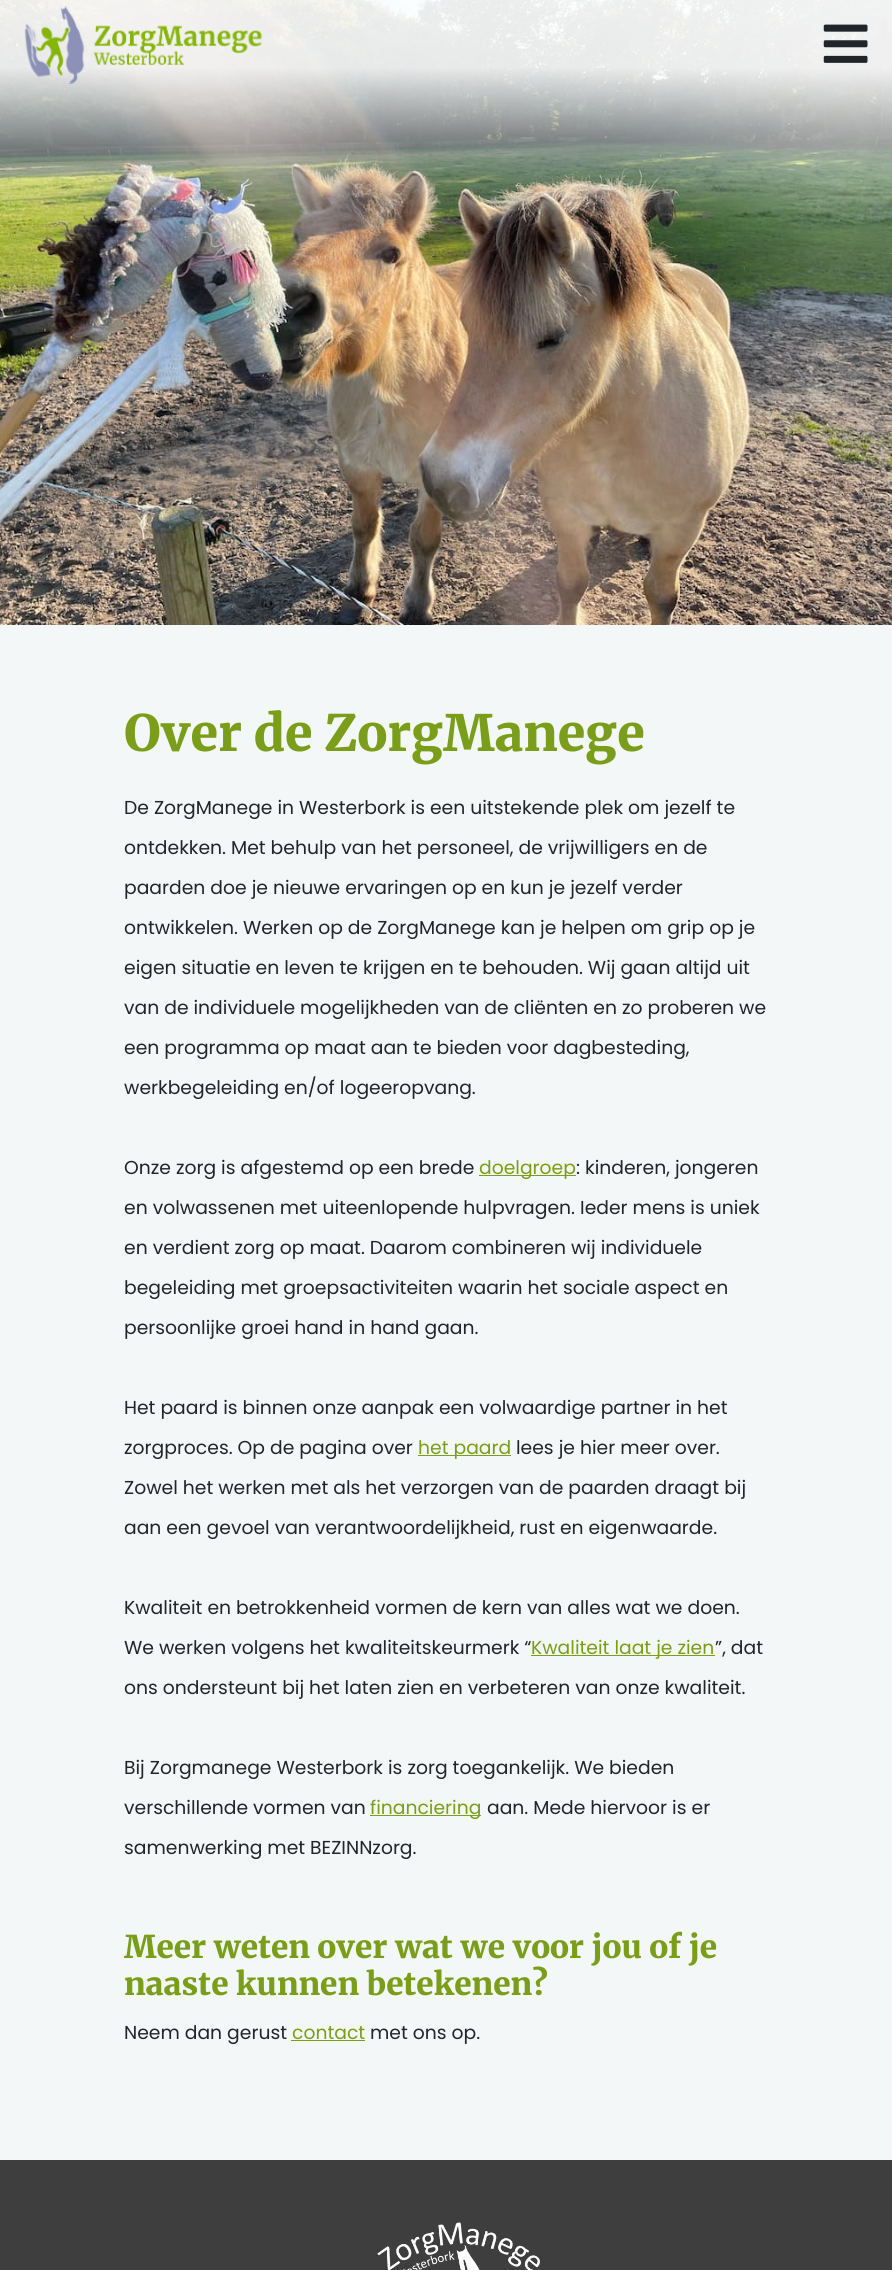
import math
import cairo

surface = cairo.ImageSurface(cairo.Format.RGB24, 892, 2270)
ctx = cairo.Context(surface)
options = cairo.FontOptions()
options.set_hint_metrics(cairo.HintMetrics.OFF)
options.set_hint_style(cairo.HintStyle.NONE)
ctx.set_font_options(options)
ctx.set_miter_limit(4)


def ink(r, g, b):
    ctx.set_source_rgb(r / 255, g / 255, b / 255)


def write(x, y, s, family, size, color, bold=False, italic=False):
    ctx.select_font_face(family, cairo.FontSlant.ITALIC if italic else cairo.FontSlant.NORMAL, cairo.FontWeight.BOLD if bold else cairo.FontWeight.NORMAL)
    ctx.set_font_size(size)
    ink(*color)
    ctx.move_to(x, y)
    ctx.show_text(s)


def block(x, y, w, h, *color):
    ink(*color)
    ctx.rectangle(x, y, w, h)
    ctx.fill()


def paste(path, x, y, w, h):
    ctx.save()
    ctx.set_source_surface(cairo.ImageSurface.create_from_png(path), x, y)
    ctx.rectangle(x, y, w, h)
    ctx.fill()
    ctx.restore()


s1 = dict(family="Merriweather Black", size=50, color=(122, 158, 26))
s2 = dict(family="Poppins", size=18.75, color=(33, 37, 41))
s3 = dict(family="Poppins", size=18.75, color=(122, 158, 26))
s4 = dict(family="Merriweather Black", size=31.4, color=(122, 158, 26))

ink(244, 247, 247)
ctx.paint()
paste("pic1.png", 0, 0, 892, 625)
paste("pic2.png", 24, 5, 238, 79)
paste("pic3.png", 823, 24, 45, 39)
write(124, 751, "Over de ZorgManege", **s1)
write(124, 814, "De ZorgManege in Westerbork is een uitstekende plek om jezelf te", **s2)
write(124, 854, "ontdekken. Met behulp van het personeel, de vrijwilligers en de", **s2)
write(124, 894, "paarden doe je nieuwe ervaringen op en kun je jezelf verder", **s2)
write(124, 934, "ontwikkelen. Werken op de ZorgManege kan je helpen om grip op je", **s2)
write(124, 974, "eigen situatie en leven te krijgen en te behouden. Wij gaan altijd uit", **s2)
write(124, 1014, "van de individuele mogelijkheden van de cliënten en zo proberen we", **s2)
write(124, 1054, "een programma op maat aan te bieden voor dagbesteding,", **s2)
write(124, 1094, "werkbegeleiding en/of logeeropvang.", **s2)
write(124, 1174, "Onze zorg is afgestemd op een brede", **s2)
block(479, 1175, 97, 1, 122, 158, 26)
write(479, 1174, "doelgroep", **s3)
write(576, 1174, ": kinderen, jongeren", **s2)
write(124, 1214, "en volwassenen met uiteenlopende hulpvragen. Ieder mens is uniek", **s2)
write(124, 1254, "en verdient zorg op maat. Daarom combineren wij individuele", **s2)
write(124, 1294, "begeleiding met groepsactiviteiten waarin het sociale aspect en", **s2)
write(124, 1334, "persoonlijke groei hand in hand gaan.", **s2)
write(124, 1414, "Het paard is binnen onze aanpak een volwaardige partner in het", **s2)
write(124, 1454, "zorgproces. Op de pagina over", **s2)
block(418, 1455, 93, 1, 122, 158, 26)
write(418, 1454, "het paard", **s3)
write(516, 1454, "lees je hier meer over.", **s2)
write(124, 1494, "Zowel het werken met als het verzorgen van de paarden draagt bij", **s2)
write(124, 1534, "aan een gevoel van verantwoordelijkheid, rust en eigenwaarde.", **s2)
write(124, 1614, "Kwaliteit en betrokkenheid vormen de kern van alles wat we doen.", **s2)
write(124, 1654, "We werken volgens het kwaliteitskeurmerk “", **s2)
block(531, 1655, 184, 1, 122, 158, 26)
write(531, 1654, "Kwaliteit laat je zien", **s3)
write(715, 1654, "”, dat", **s2)
write(124, 1694, "ons ondersteunt bij het laten zien en verbeteren van onze kwaliteit.", **s2)
write(124, 1774, "Bij Zorgmanege Westerbork is zorg toegankelijk. We bieden", **s2)
write(124, 1814, "verschillende vormen van", **s2)
block(370, 1815, 111, 1, 122, 158, 26)
write(370, 1814, "financiering", **s3)
write(487, 1814, "aan. Mede hiervoor is er", **s2)
write(124, 1854, "samenwerking met BEZINNzorg.", **s2)
write(124, 1958, "Meer weten over wat we voor jou of je", **s4)
write(124, 1995, "naaste kunnen betekenen?", **s4)
write(124, 2039, "Neem dan gerust", **s2)
write(292, 2039, "contact", **s3)
block(291, 2040, 74, 1, 122, 158, 26)
write(370, 2039, "met ons op.", **s2)
block(0, 2160, 892, 110, 62, 62, 62)
paste("pic4.png", 377, 2222, 163, 48)
surface.write_to_png("screenshot.png")
